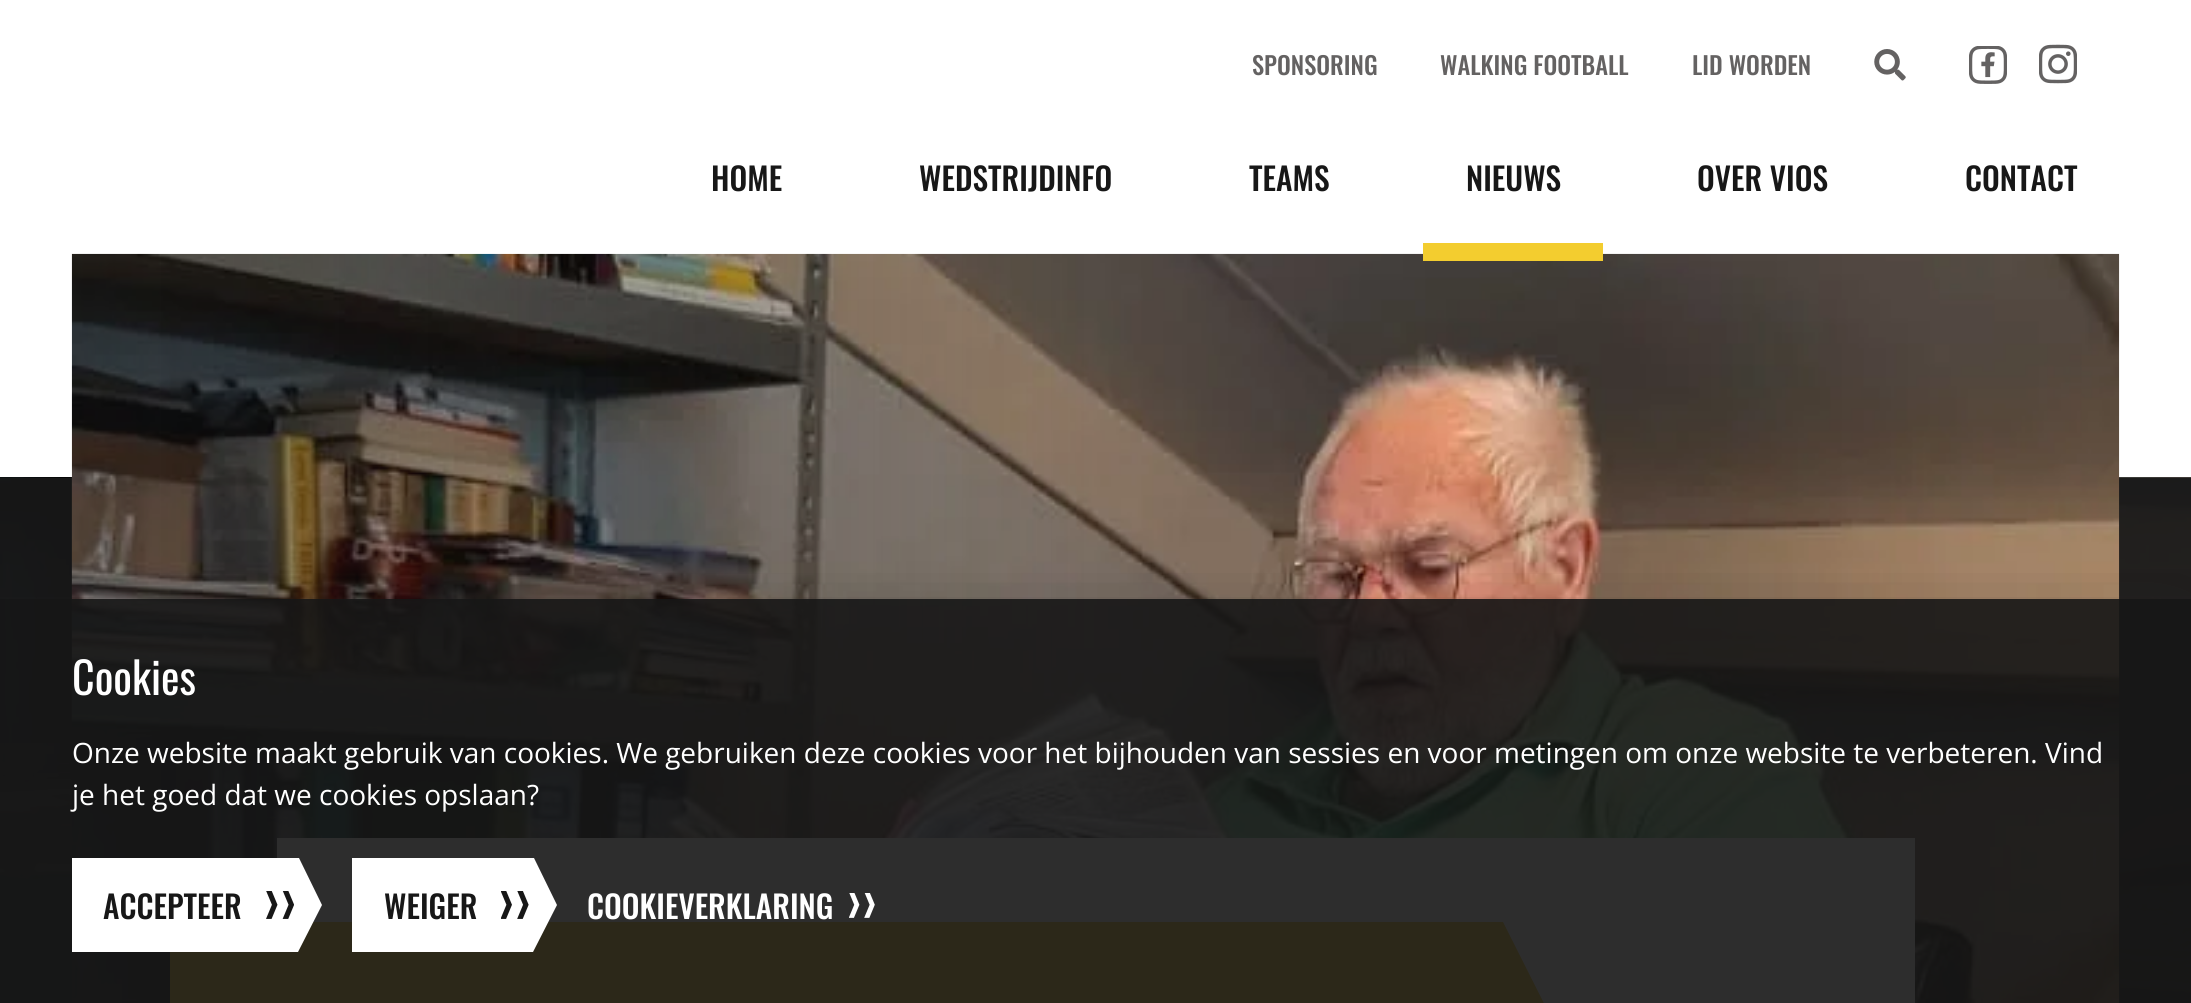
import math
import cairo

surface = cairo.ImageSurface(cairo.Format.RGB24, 2191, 1003)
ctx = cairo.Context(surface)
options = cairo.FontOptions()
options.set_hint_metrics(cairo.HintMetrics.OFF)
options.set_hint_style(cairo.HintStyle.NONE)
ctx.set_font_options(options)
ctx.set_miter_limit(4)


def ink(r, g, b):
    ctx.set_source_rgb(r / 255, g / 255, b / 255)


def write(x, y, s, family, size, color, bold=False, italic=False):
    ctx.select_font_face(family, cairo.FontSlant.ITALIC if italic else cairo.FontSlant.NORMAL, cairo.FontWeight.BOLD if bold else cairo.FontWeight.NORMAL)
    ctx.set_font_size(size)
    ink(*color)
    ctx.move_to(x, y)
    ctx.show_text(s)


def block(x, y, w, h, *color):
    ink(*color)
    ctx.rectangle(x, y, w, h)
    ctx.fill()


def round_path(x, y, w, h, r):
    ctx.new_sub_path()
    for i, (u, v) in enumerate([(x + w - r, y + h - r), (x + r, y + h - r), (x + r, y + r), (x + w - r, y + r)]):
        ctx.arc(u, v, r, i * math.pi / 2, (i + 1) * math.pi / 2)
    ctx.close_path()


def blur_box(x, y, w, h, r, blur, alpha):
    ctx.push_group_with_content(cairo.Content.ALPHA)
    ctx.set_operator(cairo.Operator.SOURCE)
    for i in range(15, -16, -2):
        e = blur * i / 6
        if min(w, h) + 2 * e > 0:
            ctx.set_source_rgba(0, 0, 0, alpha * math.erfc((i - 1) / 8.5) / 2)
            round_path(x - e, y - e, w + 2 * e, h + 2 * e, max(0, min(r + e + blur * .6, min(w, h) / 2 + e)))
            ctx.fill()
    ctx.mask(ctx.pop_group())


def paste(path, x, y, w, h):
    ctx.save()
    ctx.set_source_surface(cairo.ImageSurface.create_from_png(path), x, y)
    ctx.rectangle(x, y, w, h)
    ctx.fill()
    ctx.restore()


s1 = dict(family="Oswald Medium", size=24.5, color=(100, 98, 98))
s2 = dict(family="Oswald Medium", size=31.5, color=(23, 23, 23))
s3 = dict(family="Oswald", size=44, color=(255, 255, 255))
s4 = dict(family="Open Sans", size=28, color=(255, 255, 255))
s5 = dict(family="Oswald Medium", size=31.5, color=(255, 255, 255))

ink(255, 255, 255)
ctx.paint()
write(1252, 75, "SPONSORING", **s1)
write(1440, 75, "WALKING FOOTBALL", **s1)
write(1692, 75, "LID WORDEN", **s1)
paste("pic1.png", 1874, 49, 32, 32)
paste("pic2.png", 1969, 46, 38, 38)
paste("pic3.png", 2039, 44, 38, 40)
write(711, 191, "HOME", **s2)
write(919, 191, "WEDSTRIJDINFO", **s2)
write(1249, 191, "TEAMS", **s2)
paste("pic4.png", 0, 477, 2191, 526)
paste("pic5.png", 71, 253, 2049, 750)
block(1423, 243, 180, 18, 243, 205, 47)
write(1466, 191, "NIEUWS", **s2)
write(1697, 191, "OVER VIOS", **s2)
write(1965, 191, "CONTACT", **s2)
block(277, 838, 1638, 165, 255, 255, 255)
block(170, 922, 1320, 81, 243, 205, 47)
ctx.new_path()
ctx.move_to(1490, 922)
ctx.line_to(1503, 922)
ctx.line_to(1572, 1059)
ctx.line_to(1503, 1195)
ctx.line_to(1490, 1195)
ctx.close_path()
ctx.fill()
ctx.save()
ctx.rectangle(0, 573, 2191, 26)
ctx.clip()
ink(23, 23, 23)
blur_box(21, 663, 2149, 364, 0, 44, 1)
ctx.restore()
ctx.set_source_rgba(0.09, 0.09, 0.09, 0.9)
ctx.rectangle(0, 599, 2191, 404)
ctx.fill()
write(72, 695, "Cookies", **s3)
write(72, 763, "Onze website maakt gebruik van cookies. We gebruiken deze cookies voor het bijhouden van sessies en voor metingen om onze website te verbeteren. Vind", **s4)
write(72, 805, "je het goed dat we cookies opslaan?", **s4)
block(72, 858, 222, 94, 255, 255, 255)
write(103, 919, "ACCEPTEER", **s2)
paste("pic6.png", 266, 891, 28, 28)
ink(255, 255, 255)
ctx.new_path()
ctx.move_to(294, 952)
ctx.line_to(298, 952)
ctx.line_to(322, 905)
ctx.line_to(299, 858)
ctx.line_to(294, 858)
ctx.close_path()
ctx.fill()
block(352, 858, 177, 94, 255, 255, 255)
write(384, 919, "WEIGER", **s2)
paste("pic7.png", 501, 891, 28, 28)
ink(255, 255, 255)
ctx.new_path()
ctx.move_to(529, 952)
ctx.line_to(533, 952)
ctx.line_to(557, 905)
ctx.line_to(534, 858)
ctx.line_to(529, 858)
ctx.close_path()
ctx.fill()
write(587, 919, "COOKIEVERKLARING", **s5)
paste("pic8.png", 849, 893, 26, 25)
surface.write_to_png("screenshot.png")
